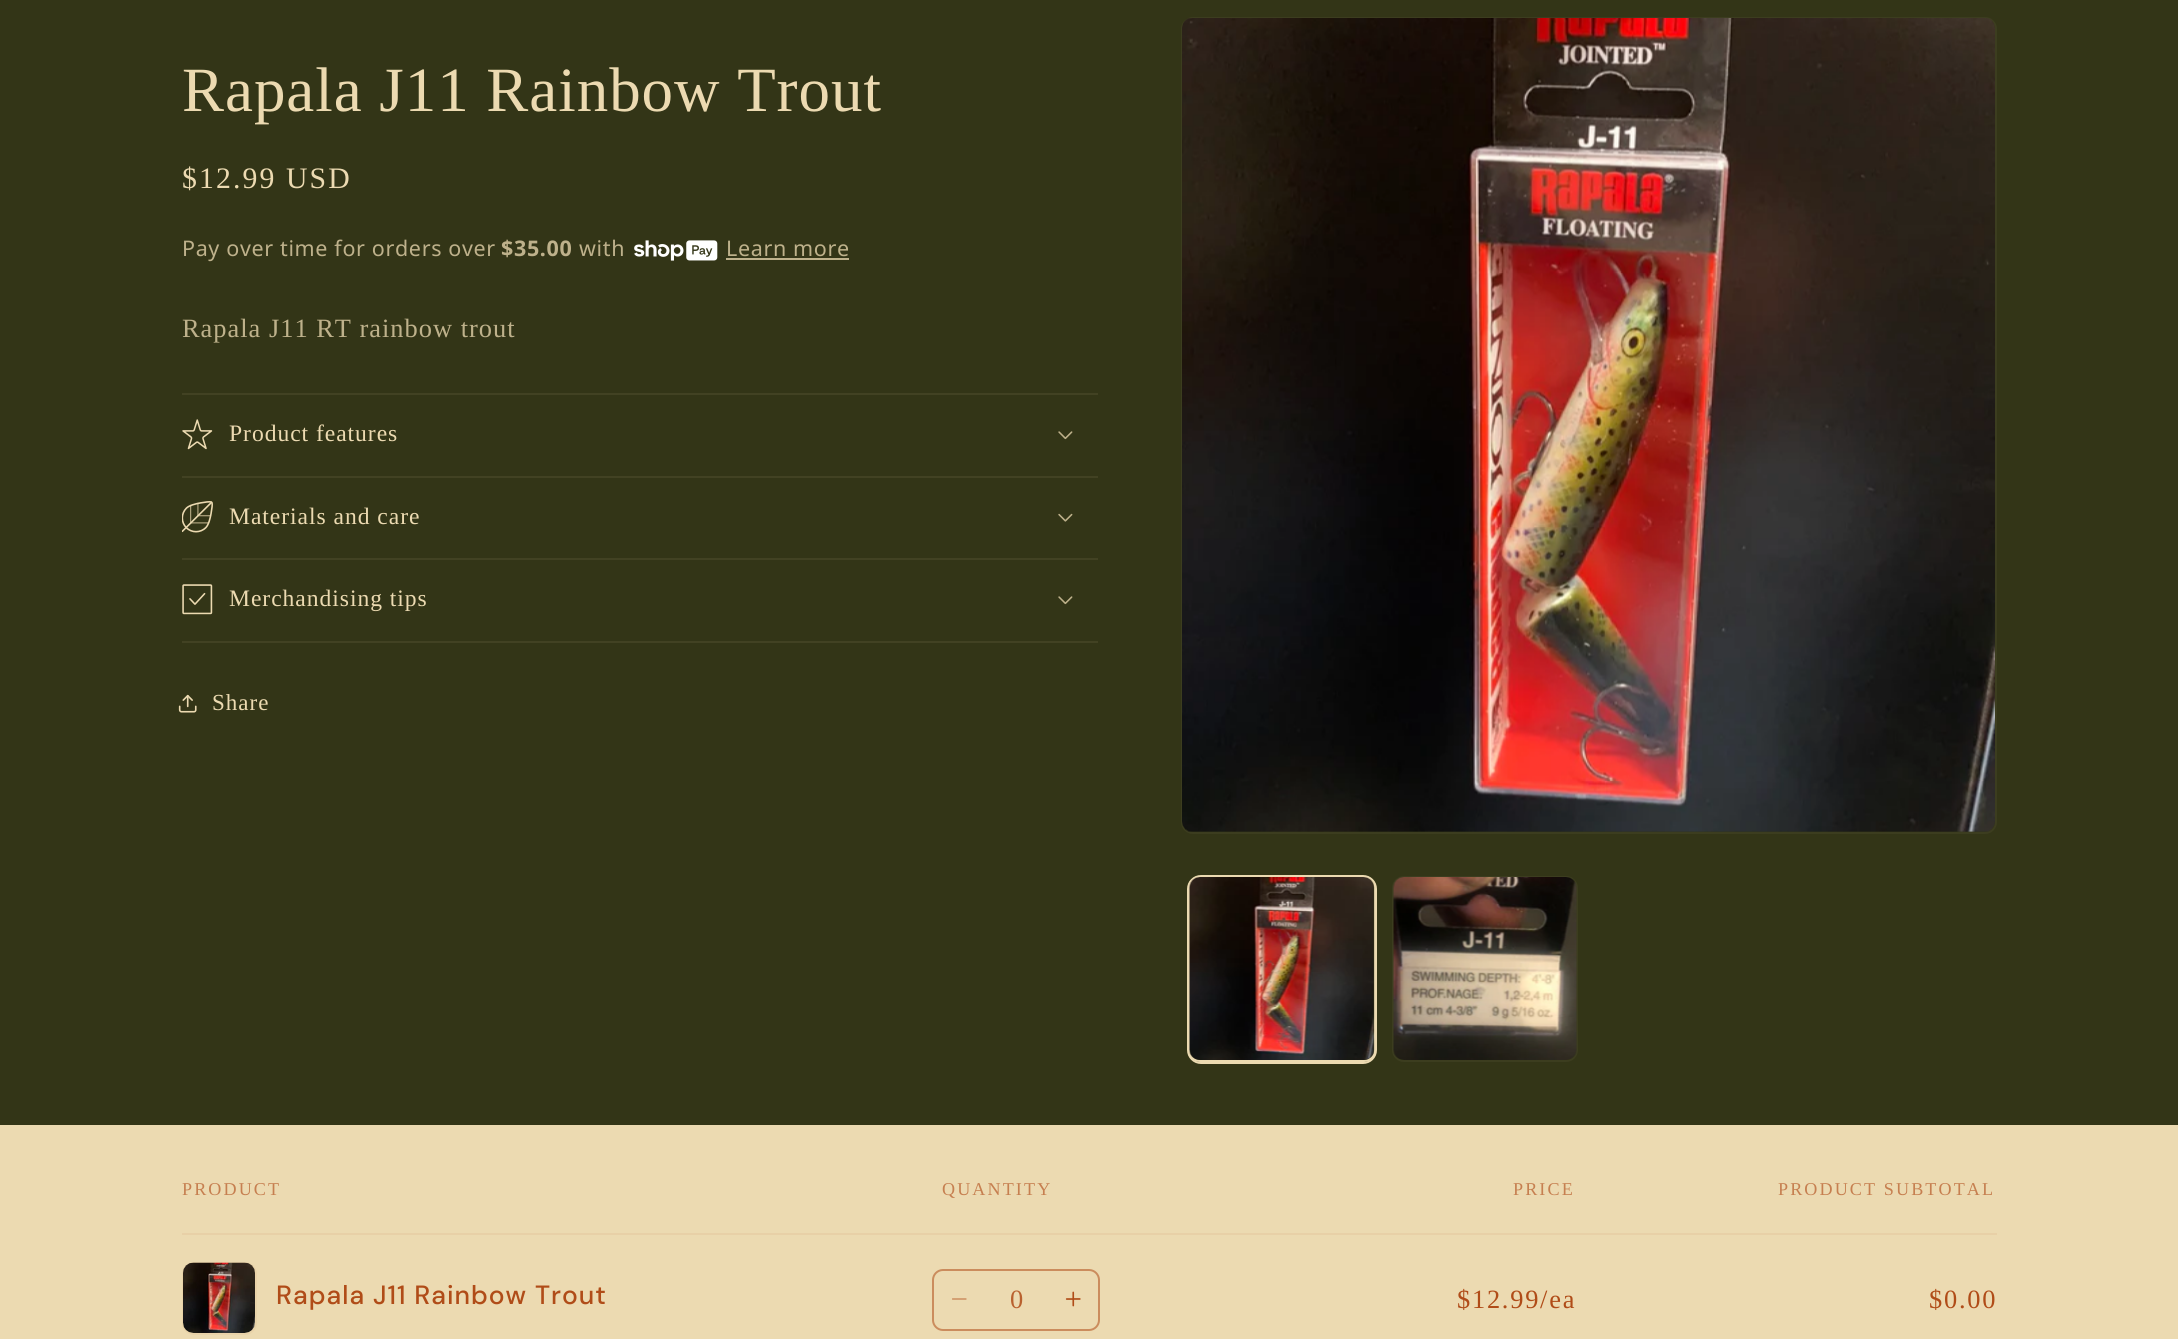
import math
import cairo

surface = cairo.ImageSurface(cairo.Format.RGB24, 2178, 1339)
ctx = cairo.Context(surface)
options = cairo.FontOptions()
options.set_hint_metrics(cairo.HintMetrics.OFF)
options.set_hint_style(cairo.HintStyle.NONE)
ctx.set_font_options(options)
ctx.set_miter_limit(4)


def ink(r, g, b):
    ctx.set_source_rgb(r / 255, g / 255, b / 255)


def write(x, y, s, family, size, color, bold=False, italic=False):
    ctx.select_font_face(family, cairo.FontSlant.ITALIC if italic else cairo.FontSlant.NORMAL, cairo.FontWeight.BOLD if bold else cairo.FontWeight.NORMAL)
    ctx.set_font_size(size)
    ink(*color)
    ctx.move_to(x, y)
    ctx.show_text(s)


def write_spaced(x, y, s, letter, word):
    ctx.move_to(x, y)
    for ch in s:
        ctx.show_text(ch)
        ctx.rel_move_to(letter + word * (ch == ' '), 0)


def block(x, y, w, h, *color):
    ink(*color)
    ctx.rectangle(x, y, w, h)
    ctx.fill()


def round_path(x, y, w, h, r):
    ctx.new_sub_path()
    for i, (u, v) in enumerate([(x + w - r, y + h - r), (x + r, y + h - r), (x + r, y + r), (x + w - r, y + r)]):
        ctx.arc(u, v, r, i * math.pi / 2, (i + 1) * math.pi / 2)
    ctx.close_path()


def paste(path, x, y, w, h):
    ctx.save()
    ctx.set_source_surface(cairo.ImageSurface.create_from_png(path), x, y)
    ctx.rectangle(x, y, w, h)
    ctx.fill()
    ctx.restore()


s1 = dict(family="Liberation Serif", size=26.4, color=(185, 97, 47))

ink(51, 53, 23)
ctx.paint()
ctx.select_font_face("Liberation Serif")
ctx.set_font_size(63)
ink(236, 218, 177)
write_spaced(182, 111, "Rapala J11 Rainbow Trout", 0.95, 0)
ctx.set_font_size(29.75)
write_spaced(182, 188, "$12.99 USD", 2.1, 0)
ctx.select_font_face("Noto Sans")
ctx.set_font_size(21.5)
ink(190, 177, 139)
write_spaced(182, 256, "Pay over time for orders over", 0.65, 0)
ctx.select_font_face("Noto Sans", cairo.FontSlant.NORMAL, cairo.FontWeight.BOLD)
write_spaced(501, 256, "$35.00", 0.65, 0)
ctx.select_font_face("Noto Sans")
write_spaced(579, 256, "with", 0.65, 0)
paste("pic1.png", 634, 240, 84, 21)
write_spaced(726, 256, "Learn more", 0.65, 0)
block(726, 258, 123, 2, 190, 177, 139)
ctx.select_font_face("Liberation Serif")
ctx.set_font_size(26.4)
write_spaced(182, 337, "Rapala J11 RT rainbow trout", 1, 0)
block(182, 393, 916, 2, 66, 66, 35)
block(182, 476, 916, 2, 66, 66, 35)
paste("pic2.png", 182, 419, 31, 31)
ctx.set_font_size(23.6)
ink(236, 218, 177)
write_spaced(229, 441, "Product features", 0.95, 0)
paste("pic3.png", 1058, 431, 15, 9)
block(182, 558, 916, 2, 66, 66, 35)
paste("pic4.png", 182, 501, 31, 32)
ink(236, 218, 177)
write_spaced(229, 524, "Materials and care", 0.95, 0)
paste("pic5.png", 1058, 513, 15, 9)
block(182, 641, 916, 2, 66, 66, 35)
paste("pic6.png", 182, 584, 31, 31)
ink(236, 218, 177)
write_spaced(229, 606, "Merchandising tips", 0.95, 0)
paste("pic3.png", 1058, 596, 15, 9)
paste("pic7.png", 178, 694, 19, 19)
ctx.set_font_size(23)
write_spaced(212, 710, "Share", 1, 0)
round_path(1182, 18, 814, 815, 11)
ink(60, 61, 31)
ctx.stroke()
paste("pic8.png", 1182, 18, 813, 814)
round_path(1188, 876, 188, 187, 13)
ink(236, 218, 177)
ctx.stroke()
round_path(1189, 877, 186, 184, 11)
ctx.stroke()
paste("pic9.png", 1189, 877, 186, 183)
round_path(1393, 877, 184, 184, 11)
ink(60, 61, 31)
ctx.stroke()
paste("pic10.png", 1393, 877, 184, 183)
block(0, 1125, 2178, 214, 236, 218, 177)
block(182, 1233, 1815, 2, 232, 208, 167)
ctx.set_font_size(18.1)
ink(198, 127, 80)
write_spaced(182, 1195, "PRODUCT", 2.1, 0)
write_spaced(942, 1195, "QUANTITY", 2.1, 0)
write_spaced(1513, 1195, "PRICE", 2.1, 0)
write_spaced(1778, 1195, "PRODUCT SUBTOTAL", 2.1, 0)
round_path(183, 1263, 73, 71, 11)
ink(233, 211, 169)
ctx.stroke()
paste("pic11.png", 183, 1262, 72, 71)
ctx.select_font_face("DM Sans Medium")
ctx.set_font_size(26.4)
ink(176, 76, 24)
write_spaced(276, 1304, "Rapala J11 Rainbow Trout", 1, 0)
paste("pic12.png", 952, 1298, 15, 2)
paste("pic13.png", 1065, 1291, 16, 16)
round_path(933, 1270, 166, 60, 10)
ink(203, 140, 93)
ctx.stroke()
write(1010, 1308, "0", **s1)
ink(176, 76, 24)
write_spaced(1457, 1308, "$12.99/ea", 1.75, 0)
write_spaced(1929, 1308, "$0.00", 1.75, 0)
surface.write_to_png("screenshot.png")
